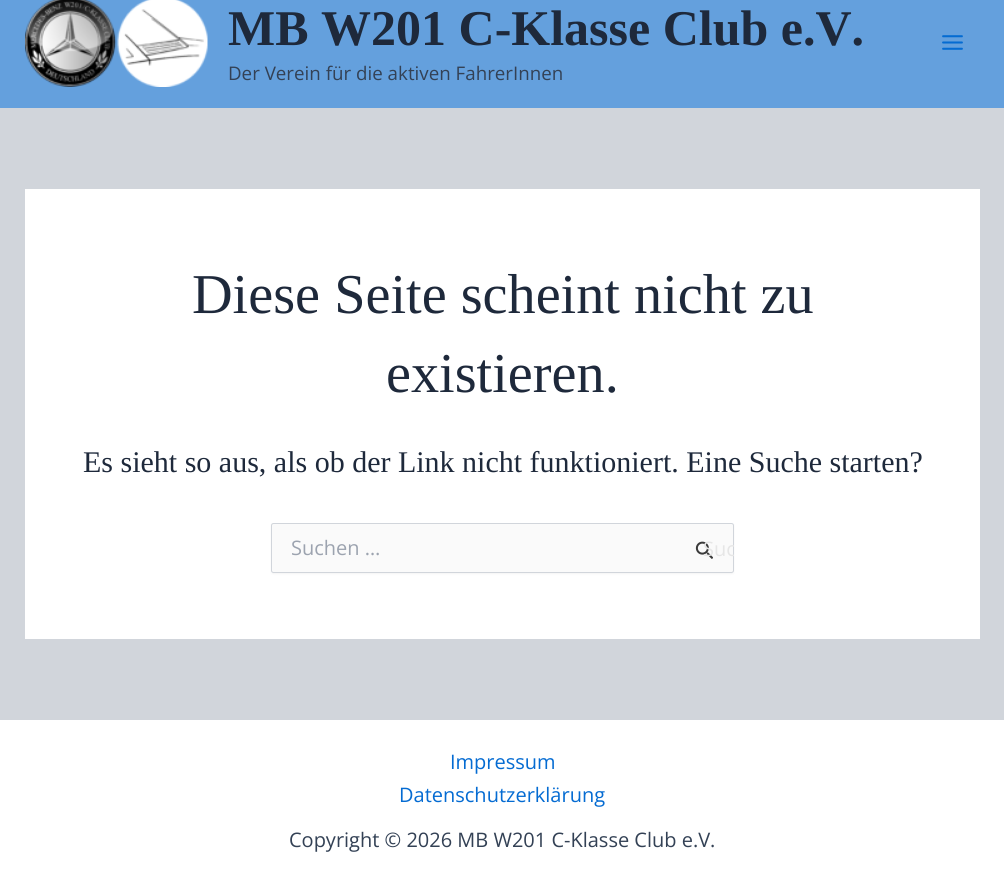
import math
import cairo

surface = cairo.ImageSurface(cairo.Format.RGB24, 1004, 875)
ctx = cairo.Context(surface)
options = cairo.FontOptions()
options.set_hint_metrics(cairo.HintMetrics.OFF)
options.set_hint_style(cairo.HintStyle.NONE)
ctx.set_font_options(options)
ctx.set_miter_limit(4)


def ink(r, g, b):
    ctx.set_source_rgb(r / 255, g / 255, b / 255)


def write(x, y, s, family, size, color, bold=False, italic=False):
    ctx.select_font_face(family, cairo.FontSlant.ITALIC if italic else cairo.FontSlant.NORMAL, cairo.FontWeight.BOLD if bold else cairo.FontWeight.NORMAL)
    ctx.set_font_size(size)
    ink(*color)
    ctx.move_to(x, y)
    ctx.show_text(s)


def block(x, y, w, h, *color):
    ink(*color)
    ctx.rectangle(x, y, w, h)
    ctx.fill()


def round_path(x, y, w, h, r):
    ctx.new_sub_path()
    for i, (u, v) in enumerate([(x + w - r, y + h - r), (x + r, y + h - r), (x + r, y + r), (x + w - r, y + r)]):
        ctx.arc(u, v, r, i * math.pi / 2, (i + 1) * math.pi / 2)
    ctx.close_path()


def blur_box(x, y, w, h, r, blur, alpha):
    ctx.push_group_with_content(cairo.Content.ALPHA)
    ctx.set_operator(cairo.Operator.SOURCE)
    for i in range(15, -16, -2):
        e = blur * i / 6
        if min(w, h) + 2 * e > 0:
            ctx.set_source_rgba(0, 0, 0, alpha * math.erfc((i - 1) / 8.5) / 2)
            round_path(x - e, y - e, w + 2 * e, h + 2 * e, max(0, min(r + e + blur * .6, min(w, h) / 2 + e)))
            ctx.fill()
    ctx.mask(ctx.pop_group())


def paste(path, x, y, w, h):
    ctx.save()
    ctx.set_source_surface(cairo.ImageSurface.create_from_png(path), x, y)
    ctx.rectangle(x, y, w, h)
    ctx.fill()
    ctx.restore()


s1 = dict(family="Liberation Serif", size=50, color=(30, 41, 59), bold=True)
s2 = dict(family="Open Sans", size=18.75, color=(51, 65, 85))
s3 = dict(family="Liberation Serif", size=56.25, color=(30, 41, 59))
s4 = dict(family="Liberation Serif", size=30, color=(30, 41, 59))
s5 = dict(family="Open Sans", size=20, color=(156, 163, 175))
s6 = dict(family="Open Sans", size=20, color=(230, 230, 230))
s7 = dict(family="Open Sans", size=20, color=(4, 107, 210))
s8 = dict(family="Open Sans", size=20, color=(51, 65, 85))

ink(209, 213, 219)
ctx.paint()
block(0, 0, 1004, 108, 100, 160, 221)
paste("pic1.png", 25, 0, 183, 87)
write(228, 45, "MB W201 C-Klasse Club e.V.", **s1)
write(228, 80, "Der Verein für die aktiven FahrerInnen", **s2)
paste("pic2.png", 942, 35, 21, 15)
block(25, 189, 955, 450, 255, 255, 255)
write(192, 313, "Diese Seite scheint nicht zu", **s3)
write(386, 392, "existieren.", **s3)
write(83, 472, "Es sieht so aus, als ob der Link nicht funktioniert. Eine Suche starten?", **s4)
ink(0, 0, 0)
blur_box(271, 524, 463, 50, 2.5, 1, 0.05)
ink(250, 250, 250)
round_path(271.5, 523.5, 462, 49, 2)
ctx.fill_preserve()
ink(209, 213, 219)
ctx.set_line_width(1)
ctx.stroke()
write(291, 555, "Suchen …", **s5)
paste("pic3.png", 695, 541, 18, 18)
ctx.save()
round_path(678, 523, 56, 52, 2.5)
ctx.clip()
write(703, 556, "Suc", **s6)
ctx.restore()
block(0, 720, 1004, 155, 255, 255, 255)
write(450, 769, "Impressum", **s7)
write(399, 802, "Datenschutzerklärung", **s7)
write(289, 847, "Copyright © 2026 MB W201 C-Klasse Club e.V.", **s8)
surface.write_to_png("screenshot.png")
